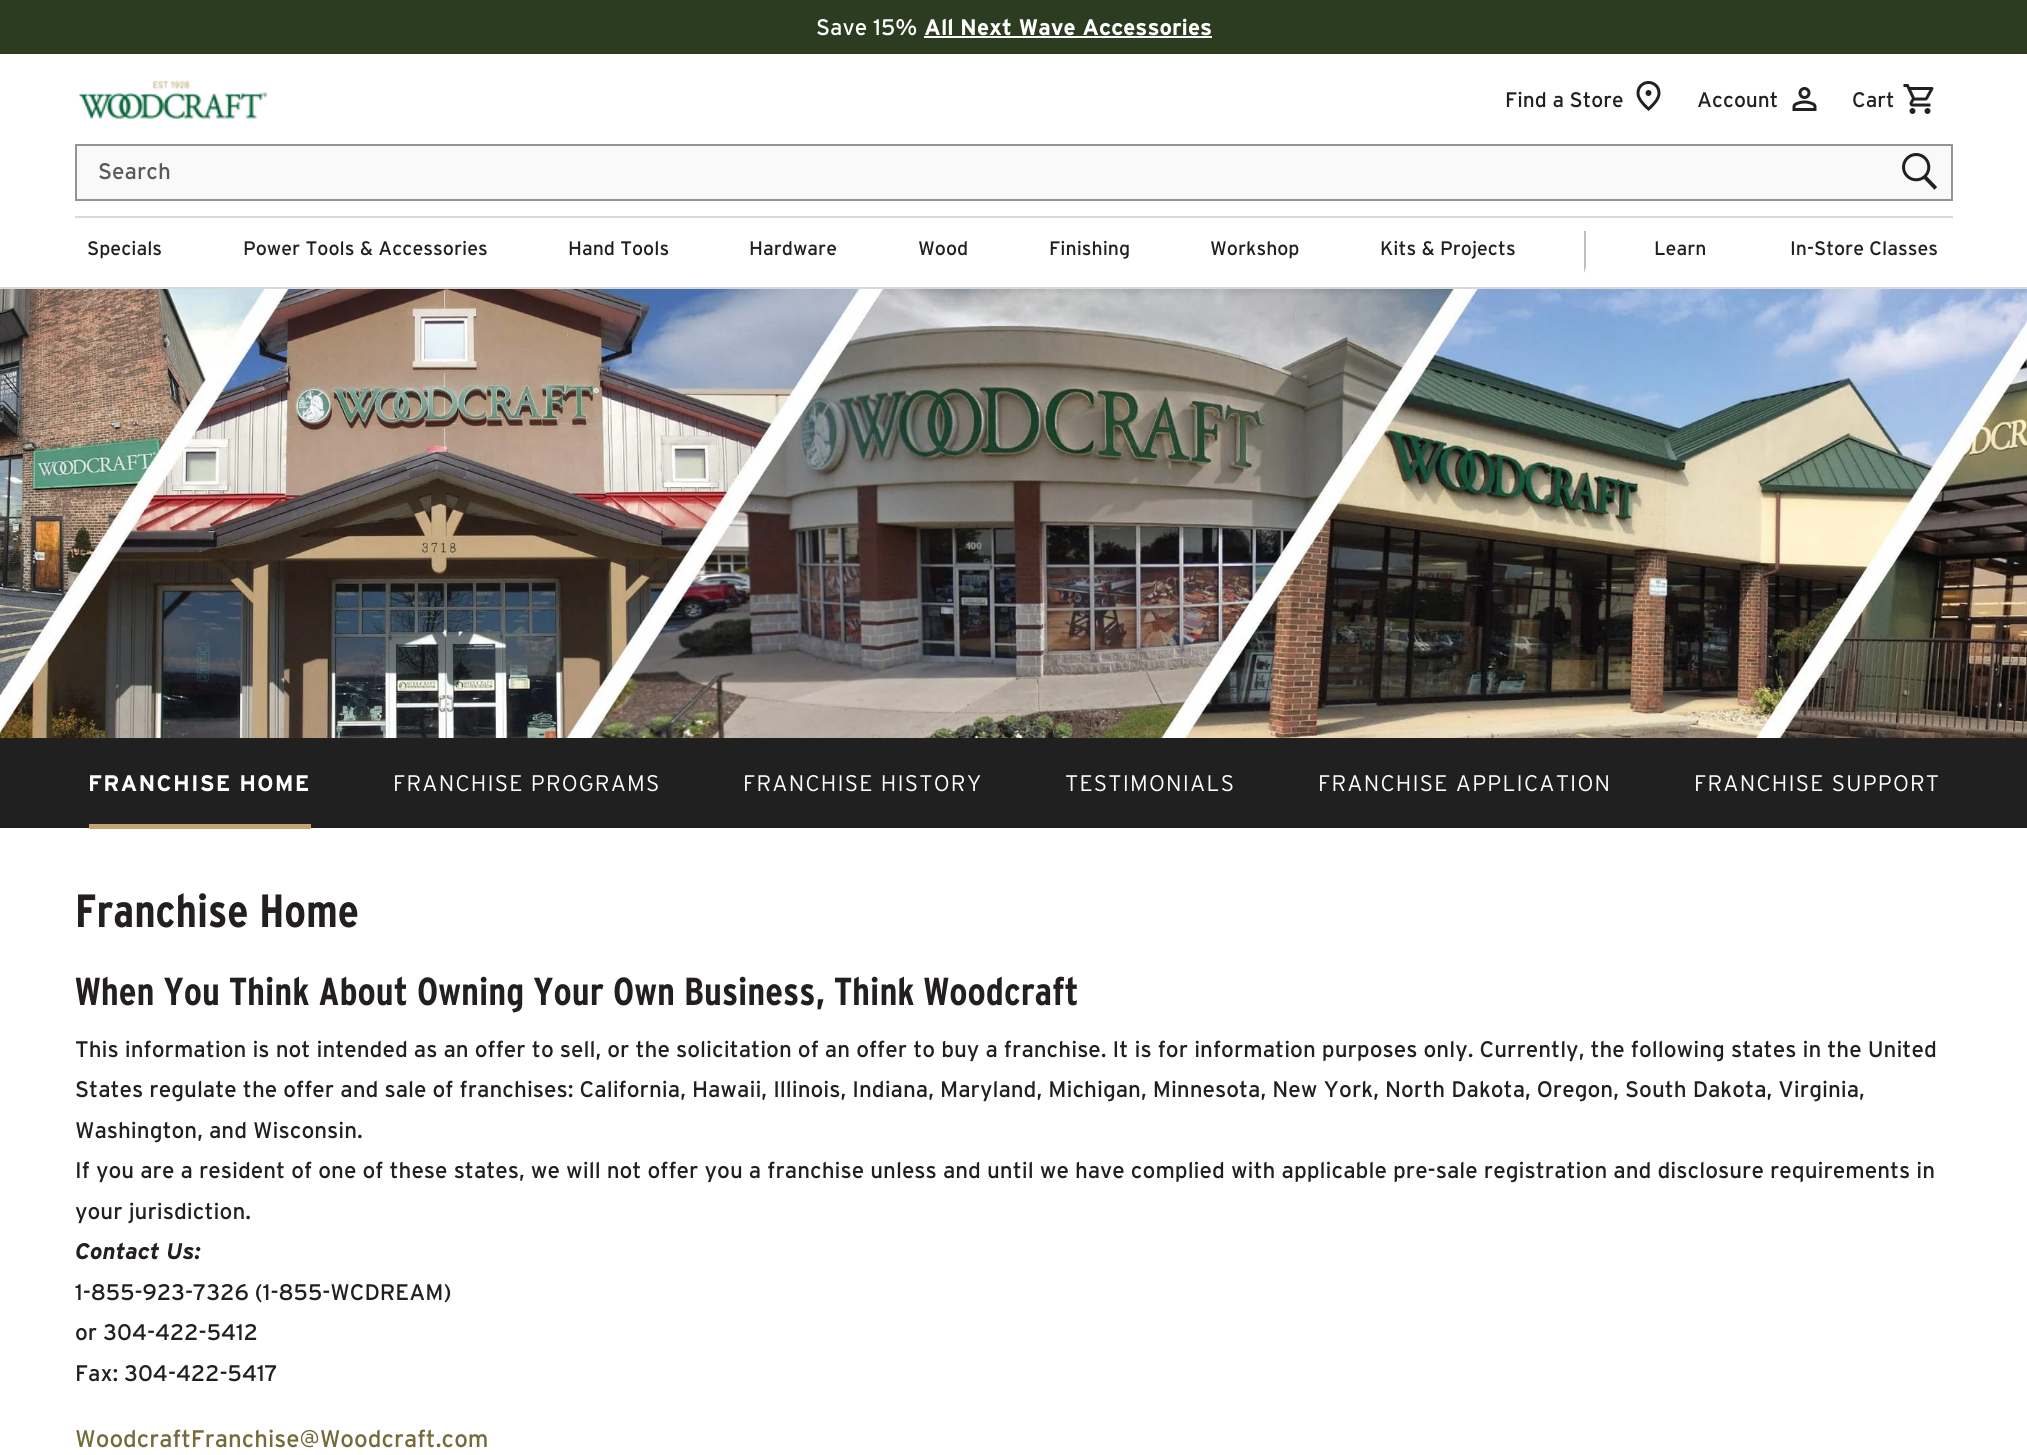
import math
import cairo

surface = cairo.ImageSurface(cairo.Format.RGB24, 2027, 1455)
ctx = cairo.Context(surface)
options = cairo.FontOptions()
options.set_hint_metrics(cairo.HintMetrics.OFF)
options.set_hint_style(cairo.HintStyle.NONE)
ctx.set_font_options(options)
ctx.set_miter_limit(4)


def ink(r, g, b):
    ctx.set_source_rgb(r / 255, g / 255, b / 255)


def write(x, y, s, family, size, color, bold=False, italic=False):
    ctx.select_font_face(family, cairo.FontSlant.ITALIC if italic else cairo.FontSlant.NORMAL, cairo.FontWeight.BOLD if bold else cairo.FontWeight.NORMAL)
    ctx.set_font_size(size)
    ink(*color)
    ctx.move_to(x, y)
    ctx.show_text(s)


def write_spaced(x, y, s, letter, word):
    ctx.move_to(x, y)
    for ch in s:
        ctx.show_text(ch)
        ctx.rel_move_to(letter + word * (ch == ' '), 0)


def block(x, y, w, h, *color):
    ink(*color)
    ctx.rectangle(x, y, w, h)
    ctx.fill()


def paste(path, x, y, w, h):
    ctx.save()
    ctx.set_source_surface(cairo.ImageSurface.create_from_png(path), x, y)
    ctx.rectangle(x, y, w, h)
    ctx.fill()
    ctx.restore()


s1 = dict(family="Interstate", size=22.5, color=(255, 255, 255))
s2 = dict(family="Interstate", size=22.5, color=(255, 255, 255), bold=True)
s3 = dict(family="Interstate", size=21, color=(35, 31, 32))
s4 = dict(family="Interstate", size=22.5, color=(92, 90, 89))
s5 = dict(family="Interstate", size=19.5, color=(35, 31, 32))
s6 = dict(family="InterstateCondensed", size=46.5, color=(35, 31, 32), bold=True)
s7 = dict(family="InterstateCondensed", size=39, color=(35, 31, 32), bold=True)
s8 = dict(family="Interstate", size=22.5, color=(35, 31, 32))
s9 = dict(family="Interstate", size=22.5, color=(35, 31, 32), bold=True, italic=True)
s10 = dict(family="Interstate", size=24, color=(118, 106, 58))

ink(255, 255, 255)
ctx.paint()
block(0, 0, 2027, 54, 44, 60, 32)
write(816, 35, "Save 15%", **s1)
write(924, 35, "All Next Wave Accessories", **s2)
block(924, 36, 288, 2, 255, 255, 255)
block(0, 287, 2027, 2, 217, 217, 217)
paste("pic1.png", 79, 80, 188, 39)
write(1505, 107, "Find a Store", **s3)
paste("pic2.png", 1636, 81, 25, 30)
write(1697, 107, "Account", **s3)
paste("pic3.png", 1792, 87, 25, 24)
write(1852, 107, "Cart", **s3)
paste("pic4.png", 1903, 84, 31, 30)
ink(249, 249, 249)
ctx.rectangle(76, 145, 1876, 55)
ctx.fill_preserve()
ink(148, 148, 148)
ctx.stroke()
write(98, 179, "Search", **s4)
paste("pic5.png", 1902, 153, 35, 37)
block(75, 216, 1878, 2, 217, 217, 217)
write(87, 255, "Specials", **s5)
write(243, 255, "Power Tools & Accessories", **s5)
write(568, 255, "Hand Tools", **s5)
write(749, 255, "Hardware", **s5)
write(918, 255, "Wood", **s5)
write(1049, 255, "Finishing", **s5)
write(1210, 255, "Workshop", **s5)
write(1380, 255, "Kits & Projects", **s5)
ink(188, 190, 192)
ctx.new_path()
ctx.move_to(1584, 273)
ctx.line_to(1584, 231)
ctx.line_to(1586, 231)
ctx.line_to(1586, 267)
ctx.close_path()
ctx.fill()
write(1654, 255, "Learn", **s5)
write(1790, 255, "In-Store Classes", **s5)
paste("pic6.png", 0, 289, 2027, 449)
block(0, 738, 2027, 90, 32, 32, 32)
ctx.select_font_face("Interstate", cairo.FontSlant.NORMAL, cairo.FontWeight.BOLD)
ctx.set_font_size(22.5)
ink(255, 255, 255)
write_spaced(88, 791, "FRANCHISE HOME", 1.2, 0)
block(89, 824, 222, 5, 196, 164, 111)
ctx.select_font_face("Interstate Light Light")
ink(255, 255, 255)
write_spaced(393, 791, "FRANCHISE PROGRAMS", 1.2, 0)
write_spaced(743, 791, "FRANCHISE HISTORY", 1.2, 0)
write_spaced(1065, 791, "TESTIMONIALS", 1.2, 0)
write_spaced(1318, 791, "FRANCHISE APPLICATION", 1.2, 0)
write_spaced(1694, 791, "FRANCHISE SUPPORT", 1.2, 0)
write(75, 927, "Franchise Home", **s6)
write(75, 1005, "When You Think About Owning Your Own Business, Think Woodcraft", **s7)
write(75, 1057, "This information is not intended as an offer to sell, or the solicitation of an offer to buy a franchise. It is for information purposes only. Currently, the following states in the United", **s8)
write(75, 1097, "States regulate the offer and sale of franchises: California, Hawaii, Illinois, Indiana, Maryland, Michigan, Minnesota, New York, North Dakota, Oregon, South Dakota, Virginia,", **s8)
write(75, 1138, "Washington, and Wisconsin.", **s8)
write(75, 1178, "If you are a resident of one of these states, we will not offer you a franchise unless and until we have complied with applicable pre-sale registration and disclosure requirements in", **s8)
write(75, 1219, "your jurisdiction.", **s8)
write(75, 1259, "Contact Us:", **s9)
write(75, 1300, "1-855-923-7326 (1-855-WCDREAM)", **s8)
write(75, 1340, "or 304-422-5412", **s8)
write(75, 1381, "Fax: 304-422-5417", **s8)
write(75, 1447, "WoodcraftFranchise@Woodcraft.com", **s10)
surface.write_to_png("screenshot.png")
